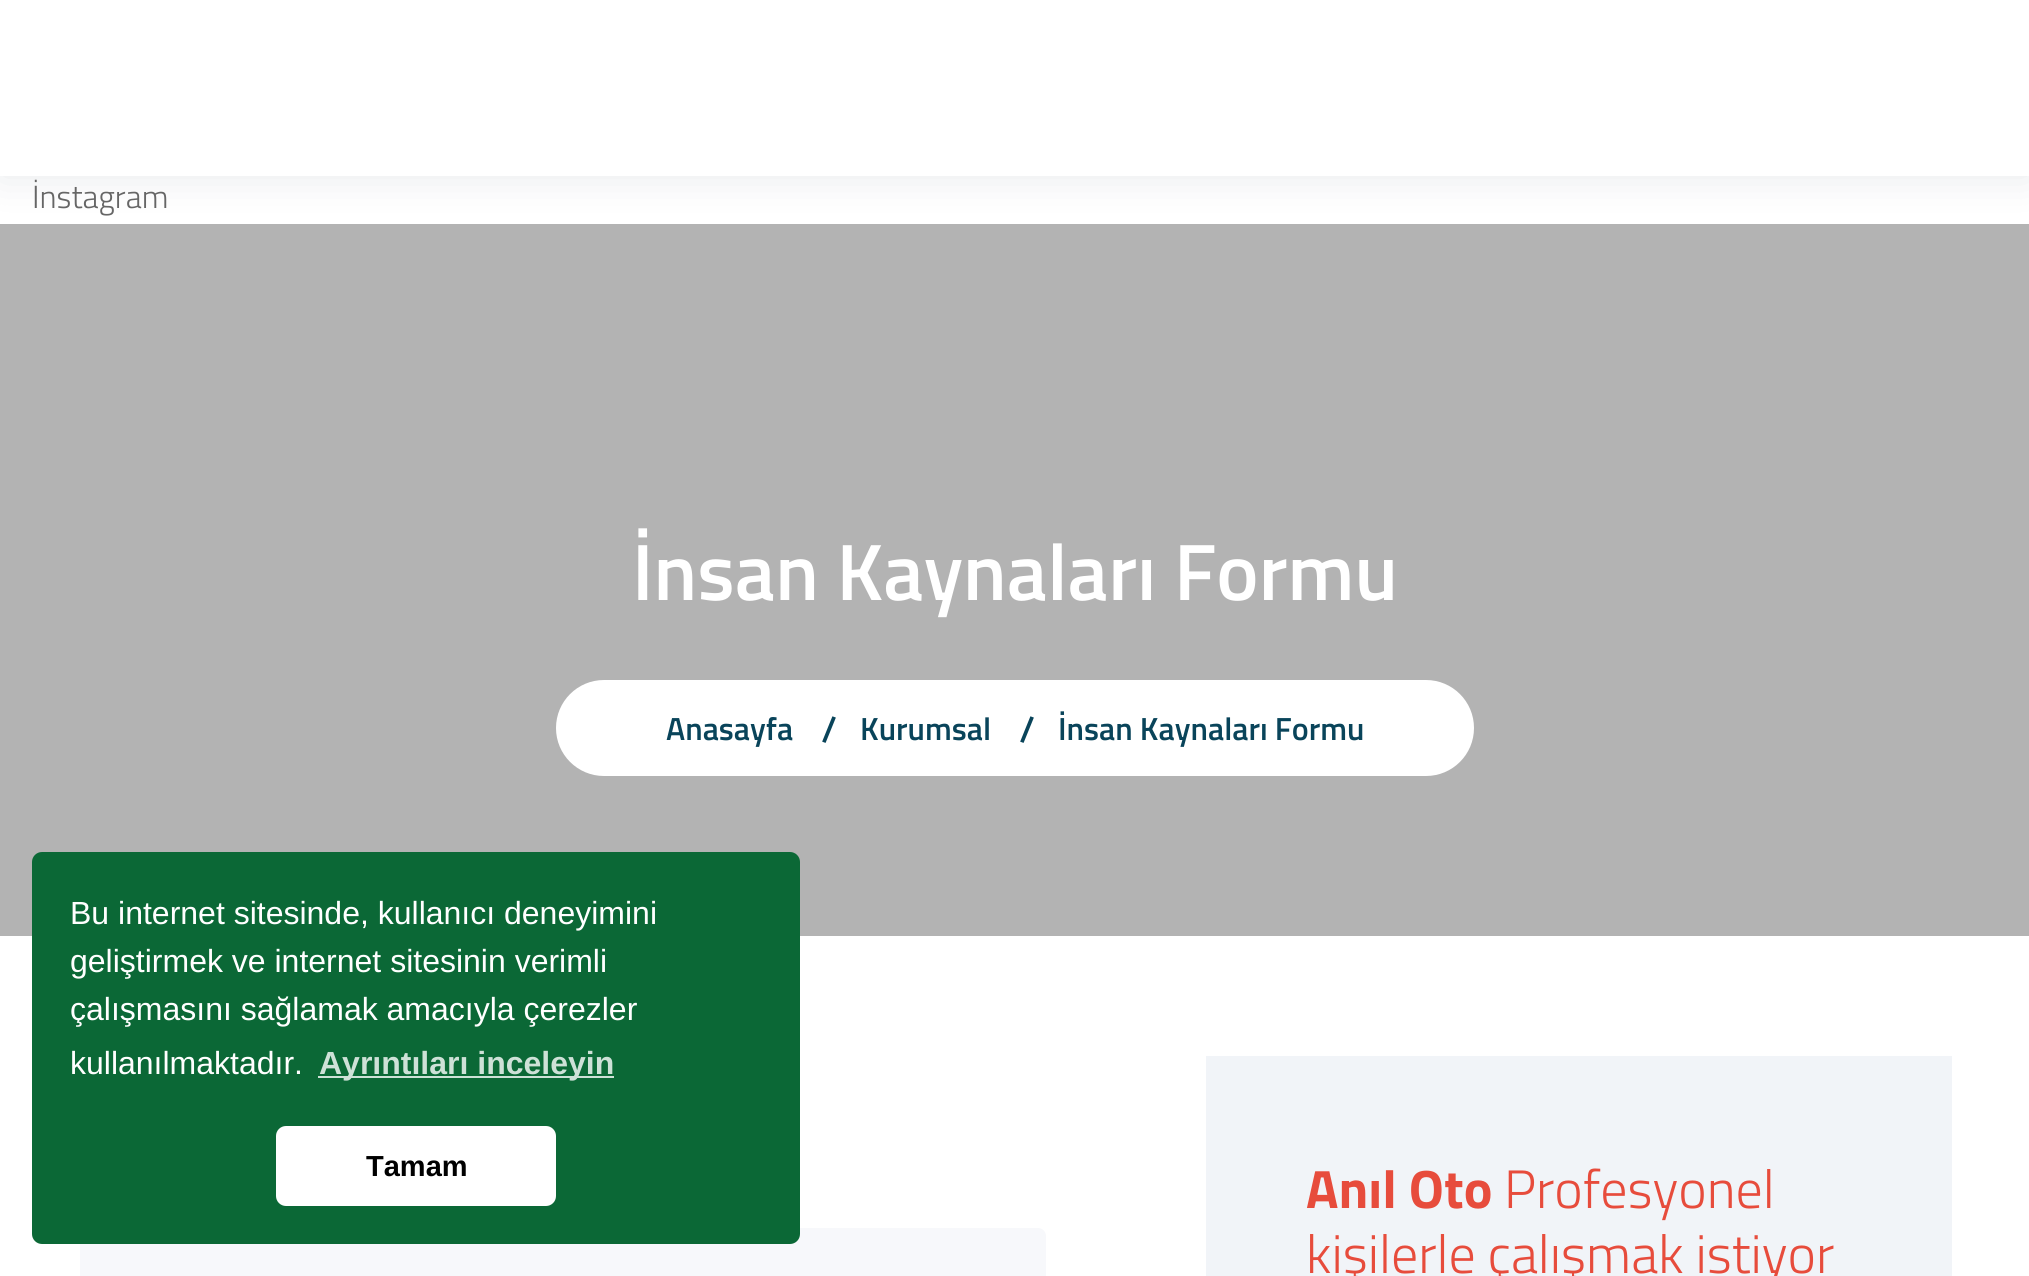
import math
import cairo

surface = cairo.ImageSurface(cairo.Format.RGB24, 2029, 1276)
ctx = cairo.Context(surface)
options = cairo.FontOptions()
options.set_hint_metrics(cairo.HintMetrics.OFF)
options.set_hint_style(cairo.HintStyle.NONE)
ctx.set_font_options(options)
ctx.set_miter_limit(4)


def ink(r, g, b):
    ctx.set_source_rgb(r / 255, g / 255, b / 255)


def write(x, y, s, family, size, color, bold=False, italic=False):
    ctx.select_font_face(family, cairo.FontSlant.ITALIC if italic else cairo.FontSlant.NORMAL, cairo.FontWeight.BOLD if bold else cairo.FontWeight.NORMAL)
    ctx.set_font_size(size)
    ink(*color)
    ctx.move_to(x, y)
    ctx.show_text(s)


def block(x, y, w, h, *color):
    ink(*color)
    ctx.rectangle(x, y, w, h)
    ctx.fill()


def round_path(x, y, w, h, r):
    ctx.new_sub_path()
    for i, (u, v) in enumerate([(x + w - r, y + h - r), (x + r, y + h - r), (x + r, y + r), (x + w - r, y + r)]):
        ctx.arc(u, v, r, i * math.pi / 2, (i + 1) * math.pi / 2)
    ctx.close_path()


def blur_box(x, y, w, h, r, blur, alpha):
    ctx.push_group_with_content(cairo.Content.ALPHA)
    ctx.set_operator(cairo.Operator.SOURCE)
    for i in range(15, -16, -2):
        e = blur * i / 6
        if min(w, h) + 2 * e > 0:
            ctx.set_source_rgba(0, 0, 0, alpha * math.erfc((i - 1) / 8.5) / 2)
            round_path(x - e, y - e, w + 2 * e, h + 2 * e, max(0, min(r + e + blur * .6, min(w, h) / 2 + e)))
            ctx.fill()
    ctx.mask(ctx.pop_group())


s1 = dict(family="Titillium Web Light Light", size=32, color=(102, 102, 102))
s2 = dict(family="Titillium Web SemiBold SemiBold", size=80, color=(255, 255, 255))
s3 = dict(family="Titillium Web SemiBold SemiBold", size=32, color=(9, 68, 90))
s4 = dict(family="Titillium Web SemiBold SemiBold", size=36, color=(9, 68, 90))
s5 = dict(family="Liberation Sans", size=32, color=(255, 255, 255))
s6 = dict(family="Liberation Sans", size=32, color=(206, 225, 215), bold=True)
s7 = dict(family="Liberation Sans", size=29, color=(0, 0, 0), bold=True)
s8 = dict(family="Titillium Web", size=54, color=(231, 76, 60), bold=True)
s9 = dict(family="Titillium Web Light Light", size=54, color=(231, 76, 60))

ink(255, 255, 255)
ctx.paint()
block(0, 224, 2029, 712, 179, 179, 179)
ink(7, 20, 52)
blur_box(0, 0, 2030, 176, 0, 20, 0.1)
block(0, 0, 2029, 176, 255, 255, 255)
write(32, 208, "İnstagram", **s1)
write(632, 600, "İnsan Kaynaları Formu", **s2)
round_path(556, 680, 918, 96, 48)
ctx.fill()
write(666, 740, "Anasayfa", **s3)
write(821, 742, "/", **s4)
write(860, 740, "Kurumsal", **s3)
write(1019, 742, "/", **s4)
write(1058, 740, "İnsan Kaynaları Formu", **s3)
ink(247, 248, 251)
round_path(80, 1228, 966, 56, 8)
ctx.fill()
ink(11, 104, 54)
round_path(32, 852, 768, 392, 10)
ctx.fill()
write(70, 924, "Bu internet sitesinde, kullanıcı deneyimini", **s5)
write(70, 972, "geliştirmek ve internet sitesinin verimli", **s5)
write(70, 1020, "çalışmasını sağlamak amacıyla çerezler", **s5)
write(70, 1074, "kullanılmaktadır.", **s5)
block(318, 1076, 296, 2, 206, 225, 215)
write(319, 1074, "Ayrıntıları inceleyin", **s6)
ink(255, 255, 255)
round_path(276, 1126, 280, 80, 10)
ctx.fill()
write(366, 1176, "Tamam", **s7)
block(1206, 1056, 746, 220, 241, 244, 248)
write(1306, 1208, "Anıl Oto", **s8)
write(1504, 1208, "Profesyonel", **s9)
write(1306, 1273, "kişilerle çalışmak istiyor", **s9)
surface.write_to_png("screenshot.png")
